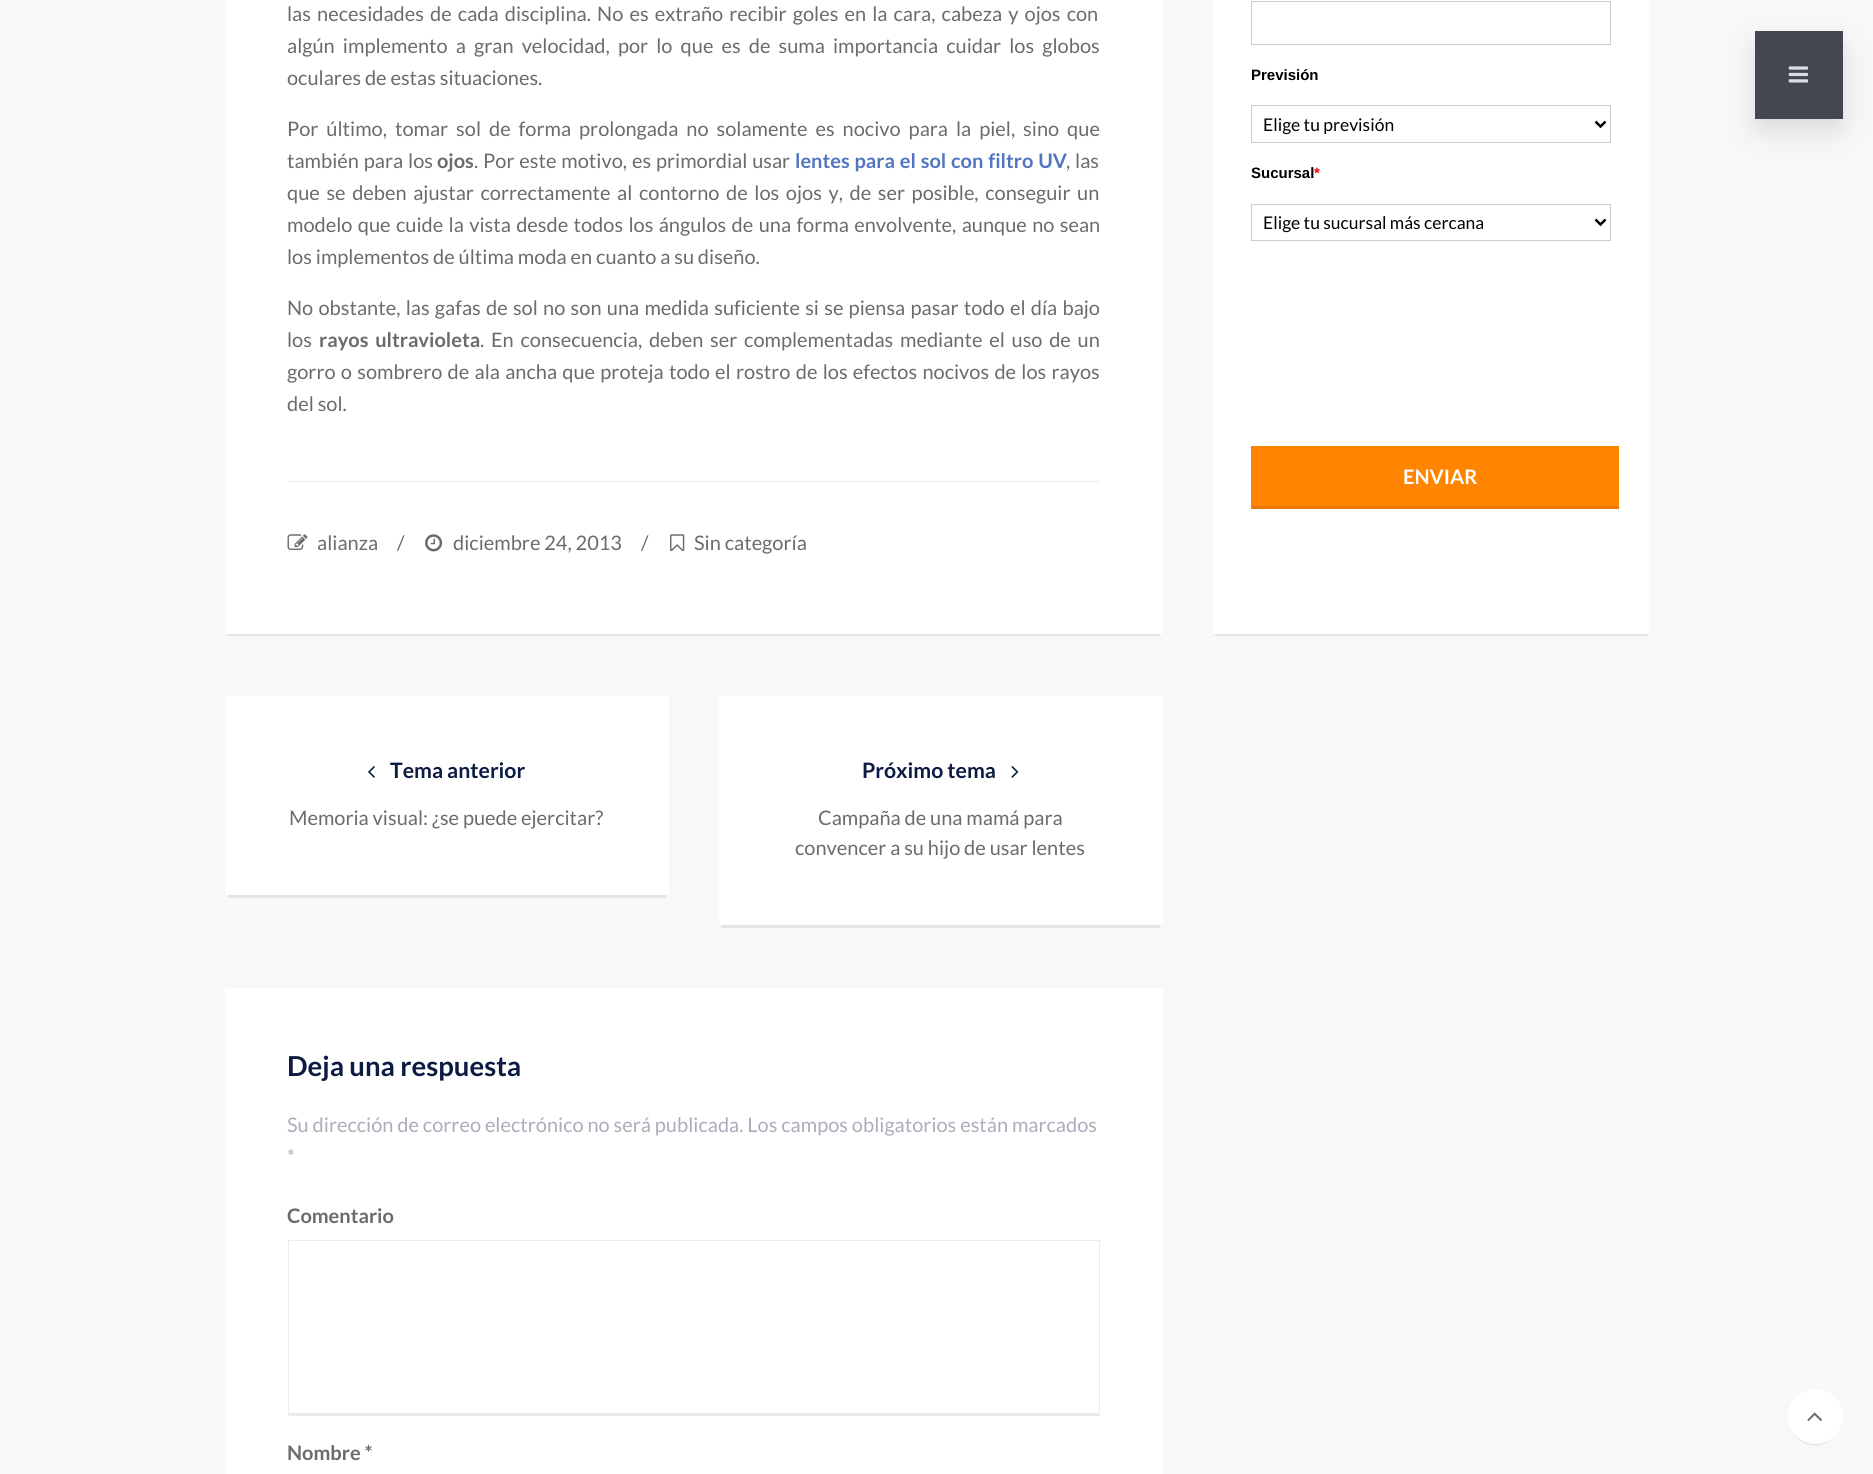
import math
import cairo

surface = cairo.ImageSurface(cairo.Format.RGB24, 1873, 1474)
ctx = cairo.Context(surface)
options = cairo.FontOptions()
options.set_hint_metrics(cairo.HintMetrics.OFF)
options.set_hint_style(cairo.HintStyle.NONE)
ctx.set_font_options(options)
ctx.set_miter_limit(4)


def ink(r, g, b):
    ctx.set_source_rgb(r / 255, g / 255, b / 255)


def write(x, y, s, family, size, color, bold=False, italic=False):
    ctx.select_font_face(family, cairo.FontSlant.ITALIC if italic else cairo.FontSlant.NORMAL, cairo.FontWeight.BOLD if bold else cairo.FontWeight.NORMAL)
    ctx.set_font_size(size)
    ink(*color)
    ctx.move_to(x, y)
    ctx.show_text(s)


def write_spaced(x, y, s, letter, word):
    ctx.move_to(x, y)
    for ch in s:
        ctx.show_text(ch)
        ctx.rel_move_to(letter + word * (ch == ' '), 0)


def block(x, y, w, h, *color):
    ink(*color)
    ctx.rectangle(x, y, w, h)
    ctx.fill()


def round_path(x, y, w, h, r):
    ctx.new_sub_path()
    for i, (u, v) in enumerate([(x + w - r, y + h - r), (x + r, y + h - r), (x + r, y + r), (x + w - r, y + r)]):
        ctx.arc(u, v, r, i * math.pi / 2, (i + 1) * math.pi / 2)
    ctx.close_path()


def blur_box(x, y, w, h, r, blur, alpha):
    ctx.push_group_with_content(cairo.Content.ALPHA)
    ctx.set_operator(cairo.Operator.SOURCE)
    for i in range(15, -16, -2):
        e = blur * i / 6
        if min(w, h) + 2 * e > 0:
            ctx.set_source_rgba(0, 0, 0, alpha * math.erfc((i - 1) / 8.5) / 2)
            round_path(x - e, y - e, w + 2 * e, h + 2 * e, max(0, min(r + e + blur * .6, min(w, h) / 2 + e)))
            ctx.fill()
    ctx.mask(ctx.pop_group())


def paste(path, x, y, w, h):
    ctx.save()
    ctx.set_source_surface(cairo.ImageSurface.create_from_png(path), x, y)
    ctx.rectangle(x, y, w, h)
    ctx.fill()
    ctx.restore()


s1 = dict(family="Lato", size=20, color=(107, 107, 107))
s2 = dict(family="Lato", size=20, color=(107, 107, 107), bold=True)
s3 = dict(family="Lato", size=21.25, color=(13, 27, 67), bold=True)
s4 = dict(family="Lato", size=27.5, color=(13, 27, 67), bold=True)
s5 = dict(family="Lato", size=20, color=(169, 174, 186))
s6 = dict(family="Liberation Sans", size=15, color=(0, 0, 0), bold=True)
s7 = dict(family="Lato", size=17.5, color=(0, 0, 0))
s8 = dict(family="Liberation Sans", size=15, color=(255, 0, 0), bold=True)
s9 = dict(family="Lato", size=20, color=(255, 255, 255), bold=True)

ink(248, 248, 248)
ctx.paint()
block(228, 634, 932, 2, 228, 228, 230)
block(225, 0, 938, 634, 255, 255, 255)
ctx.select_font_face("Lato")
ctx.set_font_size(20)
ink(107, 107, 107)
write_spaced(287, 21, "las necesidades de cada disciplina. No es extraño recibir goles en la cara, cabeza y ojos con", 0, 2.25)
write_spaced(287, 53, "algún implemento a gran velocidad, por lo que es de suma importancia cuidar los globos", 0, 4.25)
write(287, 85, "oculares de estas situaciones.", **s1)
write_spaced(287, 136, "Por último, tomar sol de forma prolongada no solamente es nocivo para la piel, sino que", 0, 4.1)
write_spaced(287, 168, "también para los", 0, 1)
write(437, 168, "ojos", **s2)
ctx.select_font_face("Lato")
write_spaced(474, 168, ". Por este motivo, es primordial usar", 0, 1)
ctx.select_font_face("Lato", cairo.FontSlant.NORMAL, cairo.FontWeight.BOLD)
ink(82, 117, 191)
write_spaced(795, 168, "lentes para el sol", 0, 1)
write_spaced(951, 168, "con filtro UV", 0, 1)
ctx.select_font_face("Lato")
ink(107, 107, 107)
write_spaced(1066, 168, ", las", 0, 1)
write_spaced(287, 200, "que se deben ajustar correctamente al contorno de los ojos y, de ser posible, conseguir un", 0, 2.75)
write_spaced(287, 232, "modelo que cuide la vista desde todos los ángulos de una forma envolvente, aunque no sean", 0, 1.5)
write(287, 264, "los implementos de última moda en cuanto a su diseño.", **s1)
write_spaced(287, 315, "No obstante, las gafas de sol no son una medida suficiente si se piensa pasar todo el día bajo", 0, 1.4)
write(287, 347, "los", **s1)
ctx.select_font_face("Lato", cairo.FontSlant.NORMAL, cairo.FontWeight.BOLD)
write_spaced(319, 347, "rayos ultravioleta", 0, 2.9)
ctx.select_font_face("Lato")
write_spaced(480, 347, ". En consecuencia, deben ser complementadas mediante el uso de un", 0, 2.9)
write_spaced(287, 379, "gorro o sombrero de ala ancha que proteja todo el rostro de los efectos nocivos de los rayos", 0, 1.4)
write(287, 411, "del sol.", **s1)
block(288, 481, 812, 1, 234, 235, 236)
paste("pic1.png", 287, 534, 21, 16)
write(317, 550, "alianza", **s1)
write(397, 550, "/", **s1)
paste("pic2.png", 425, 534, 18, 18)
write(453, 550, "diciembre 24, 2013", **s1)
write(641, 550, "/", **s1)
paste("pic3.png", 670, 534, 15, 18)
write(694, 550, "Sin categoría", **s1)
block(228, 895, 438, 3, 228, 228, 230)
block(225, 696, 444, 199, 255, 255, 255)
paste("pic4.png", 368, 766, 7, 12)
write(390, 778, "Tema anterior", **s3)
write(289, 825, "Memoria visual: ¿se puede ejercitar?", **s1)
block(721, 925, 439, 3, 228, 228, 230)
block(719, 696, 444, 229, 255, 255, 255)
write(862, 778, "Próximo tema", **s3)
paste("pic5.png", 1011, 766, 8, 12)
write(818, 825, "Campaña de una mamá para", **s1)
write(795, 855, "convencer a su hijo de usar lentes", **s1)
block(225, 988, 938, 486, 255, 255, 255)
write(287, 1076, "Deja una respuesta", **s4)
write(287, 1132, "Su dirección de correo electrónico no será publicada. Los campos obligatorios están marcados", **s5)
write(287, 1164, "*", **s5)
write(287, 1223, "Comentario", **s2)
block(288, 1240, 812, 1, 234, 235, 236)
block(1099, 1240, 1, 175, 234, 235, 236)
block(288, 1413, 812, 3, 234, 235, 236)
block(288, 1240, 1, 175, 234, 235, 236)
write(287, 1460, "Nombre *", **s2)
block(1215, 634, 433, 2, 228, 228, 230)
block(1213, 0, 437, 634, 255, 255, 255)
ctx.rectangle(1251.5, 1.5, 359, 43)
ink(204, 204, 204)
ctx.set_line_width(1)
ctx.stroke()
write(1251, 80, "Previsión", **s6)
ctx.rectangle(1251.5, 105.5, 359, 37)
ink(204, 204, 204)
ctx.stroke()
ctx.new_path()
ctx.move_to(1595.5, 121.5)
ctx.line_to(1600.5, 126.5)
ctx.line_to(1605.5, 121.5)
ink(0, 0, 0)
ctx.set_line_width(2.5)
ctx.stroke()
write(1263, 131, "Elige tu previsión", **s7)
write(1251, 178, "Sucursal", **s6)
write(1314, 178, "*", **s8)
ctx.rectangle(1251.5, 204.5, 359, 36)
ink(204, 204, 204)
ctx.set_line_width(1)
ctx.stroke()
ctx.new_path()
ctx.move_to(1595.5, 219.5)
ctx.line_to(1600.5, 224.5)
ctx.line_to(1605.5, 219.5)
ink(0, 0, 0)
ctx.set_line_width(2.5)
ctx.stroke()
write(1263, 229, "Elige tu sucursal más cercana", **s7)
block(1251, 446, 368, 60, 255, 133, 0)
block(1251, 506, 368, 3, 241, 117, 1)
write(1403, 484, "ENVIAR", **s9)
ctx.save()
ctx.set_fill_rule(cairo.FillRule.EVEN_ODD)
ctx.new_path()
ctx.move_to(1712, 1)
ctx.line_to(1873, 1)
ctx.line_to(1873, 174)
ctx.line_to(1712, 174)
ctx.close_path()
ctx.move_to(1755, 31)
ctx.line_to(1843, 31)
ctx.line_to(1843, 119)
ctx.line_to(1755, 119)
ctx.close_path()
ctx.clip()
ink(46, 51, 64)
blur_box(1760, 49, 78, 77, 0, 15.5, 0.2)
ctx.restore()
ctx.set_source_rgba(0.18, 0.2, 0.251, 0.9)
ctx.rectangle(1755, 31, 88, 88)
ctx.fill()
paste("pic6.png", 1788, 66, 21, 17)
ink(228, 228, 230)
ctx.new_path()
ctx.move_to(1793, 1432)
ctx.curve_to(1802, 1450, 1828, 1450, 1837, 1432)
ctx.curve_to(1826, 1447, 1804, 1447, 1793, 1432)
ctx.close_path()
ctx.fill()
ink(255, 255, 255)
ctx.arc(1815.5, 1416.5, 27.5, 0, 2 * math.pi)
ctx.fill()
paste("pic7.png", 1807, 1412, 15, 9)
surface.write_to_png("screenshot.png")
